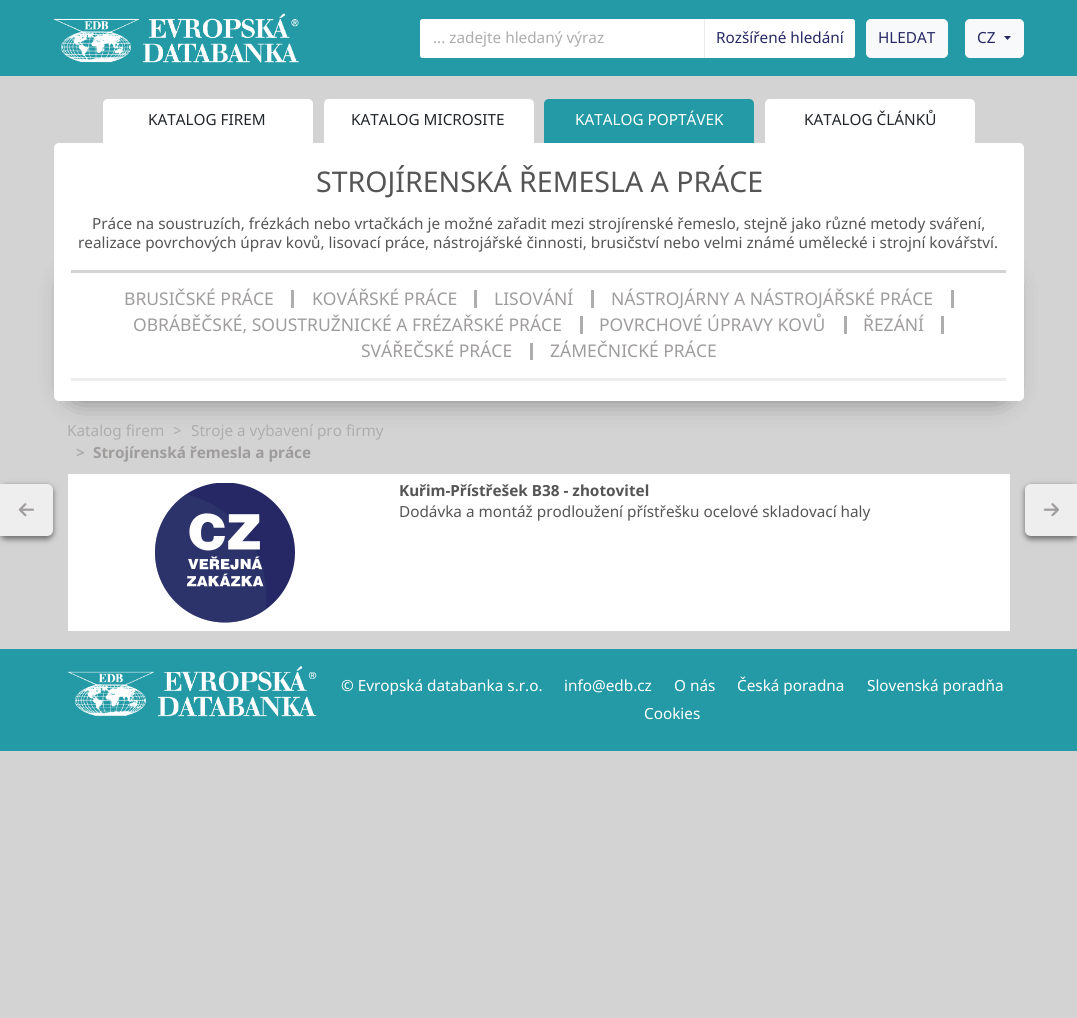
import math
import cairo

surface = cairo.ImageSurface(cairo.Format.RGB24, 1077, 1018)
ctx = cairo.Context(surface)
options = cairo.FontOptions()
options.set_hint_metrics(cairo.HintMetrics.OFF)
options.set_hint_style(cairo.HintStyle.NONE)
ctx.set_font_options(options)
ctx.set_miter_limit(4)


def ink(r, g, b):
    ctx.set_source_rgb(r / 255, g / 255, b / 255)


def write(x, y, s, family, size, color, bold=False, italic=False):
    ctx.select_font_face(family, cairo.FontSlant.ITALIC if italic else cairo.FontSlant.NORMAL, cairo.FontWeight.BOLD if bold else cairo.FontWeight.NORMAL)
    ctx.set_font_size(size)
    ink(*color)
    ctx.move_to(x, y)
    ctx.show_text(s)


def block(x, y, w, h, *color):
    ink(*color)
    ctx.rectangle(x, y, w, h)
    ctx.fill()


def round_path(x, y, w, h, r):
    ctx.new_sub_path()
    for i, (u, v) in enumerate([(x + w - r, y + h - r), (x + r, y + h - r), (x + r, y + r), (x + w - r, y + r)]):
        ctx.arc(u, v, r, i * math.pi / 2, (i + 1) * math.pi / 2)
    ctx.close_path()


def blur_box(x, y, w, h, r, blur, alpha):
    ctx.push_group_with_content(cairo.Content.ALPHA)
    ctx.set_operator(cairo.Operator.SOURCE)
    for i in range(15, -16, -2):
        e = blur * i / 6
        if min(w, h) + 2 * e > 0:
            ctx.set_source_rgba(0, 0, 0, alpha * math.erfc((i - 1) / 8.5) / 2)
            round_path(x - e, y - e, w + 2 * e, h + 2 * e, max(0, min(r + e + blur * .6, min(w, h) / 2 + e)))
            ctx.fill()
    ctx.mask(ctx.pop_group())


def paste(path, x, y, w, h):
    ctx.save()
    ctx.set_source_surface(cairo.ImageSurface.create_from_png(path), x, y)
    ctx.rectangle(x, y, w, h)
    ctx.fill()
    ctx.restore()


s1 = dict(family="Noto Sans", size=15.3, color=(173, 173, 173))
s2 = dict(family="Noto Sans", size=15.3, color=(38, 40, 100))
s3 = dict(family="Noto Sans", size=15.3, color=(33, 37, 41))
s4 = dict(family="Noto Sans", size=15.3, color=(255, 255, 255))
s5 = dict(family="Noto Sans", size=28.5, color=(85, 85, 85))
s6 = dict(family="Noto Sans", size=15.3, color=(85, 85, 85))
s7 = dict(family="Noto Sans", size=17.5, color=(159, 156, 156))
s8 = dict(family="Noto Sans", size=15.3, color=(173, 173, 173), bold=True)
s9 = dict(family="Noto Sans", size=15.3, color=(159, 156, 156), bold=True)
s10 = dict(family="Noto Sans", size=15.3, color=(85, 85, 85), bold=True)

ink(211, 211, 211)
ctx.paint()
block(0, 0, 1077, 76, 36, 154, 166)
paste("pic1.png", 53, 13, 246, 50)
ink(255, 255, 255)
round_path(420, 19, 435, 39, 2.5)
ctx.fill()
write(433, 43, "... zadejte hledaný výraz", **s1)
block(704, 19, 1, 39, 236, 236, 236)
write(716, 43, "Rozšířené hledání", **s2)
ink(248, 249, 250)
round_path(866.5, 19.5, 81, 38, 4.5)
ctx.fill_preserve()
ctx.set_line_width(1)
ctx.stroke()
write(878, 43, "HLEDAT", **s2)
ink(248, 249, 250)
round_path(965.5, 19.5, 58, 38, 4.5)
ctx.fill_preserve()
ctx.stroke()
write(977, 43, "CZ", **s2)
ctx.new_path()
ctx.move_to(1004, 36)
ctx.line_to(1011, 36)
ctx.line_to(1007.5, 40)
ctx.close_path()
ctx.fill()
ink(255, 255, 255)
ctx.new_path()
ctx.move_to(108, 99)
ctx.line_to(308, 99)
ctx.curve_to(311, 99, 313, 101, 313, 104)
ctx.line_to(313, 143)
ctx.line_to(103, 143)
ctx.line_to(103, 104)
ctx.curve_to(103, 101, 105, 99, 108, 99)
ctx.close_path()
ctx.fill()
write(148, 125, "KATALOG FIREM", **s3)
ink(255, 255, 255)
ctx.new_path()
ctx.move_to(329, 99)
ctx.line_to(529, 99)
ctx.curve_to(532, 99, 534, 101, 534, 104)
ctx.line_to(534, 143)
ctx.line_to(324, 143)
ctx.line_to(324, 104)
ctx.curve_to(324, 101, 326, 99, 329, 99)
ctx.close_path()
ctx.fill()
write(351, 125, "KATALOG MICROSITE", **s3)
ink(36, 154, 166)
ctx.new_path()
ctx.move_to(549, 99)
ctx.line_to(749, 99)
ctx.curve_to(752, 99, 754, 101, 754, 104)
ctx.line_to(754, 143)
ctx.line_to(544, 143)
ctx.line_to(544, 104)
ctx.curve_to(544, 101, 546, 99, 549, 99)
ctx.close_path()
ctx.fill()
write(575, 125, "KATALOG POPTÁVEK", **s4)
ctx.new_path()
ctx.move_to(770, 99)
ctx.line_to(970, 99)
ctx.curve_to(973, 99, 975, 101, 975, 104)
ctx.line_to(975, 143)
ctx.line_to(765, 143)
ctx.line_to(765, 104)
ctx.curve_to(765, 101, 767, 99, 770, 99)
ctx.close_path()
ctx.fill()
write(804, 125, "KATALOG ČLÁNKŮ", **s3)
ink(0, 0, 0)
blur_box(66, 273, 945, 128, 13, 12.5, 0.2)
blur_box(66, 273, 945, 128, 13, 12.5, 0.2)
ink(255, 255, 255)
round_path(54, 143, 970, 258, 5)
ctx.fill()
write(316, 192, "STROJÍRENSKÁ ŘEMESLA A PRÁCE", **s5)
write(92, 229, "Práce na soustruzích, frézkách nebo vrtačkách je možné zařadit mezi strojírenské řemeslo, stejně jako různé metody sváření,", **s6)
write(78, 248, "realizace povrchových úprav kovů, lisovací práce, nástrojářské činnosti, brusičství nebo velmi známé umělecké i strojní kovářství.", **s6)
block(71, 270, 935, 3, 211, 211, 211)
block(71, 378, 935, 3, 238, 238, 238)
block(291, 290, 3, 18, 173, 173, 173)
write(124, 305, "BRUSIČSKÉ PRÁCE", **s7)
block(474, 290, 3, 18, 173, 173, 173)
write(312, 305, "KOVÁŘSKÉ PRÁCE", **s7)
block(591, 290, 3, 18, 173, 173, 173)
write(494, 305, "LISOVÁNÍ", **s7)
block(951, 290, 3, 18, 173, 173, 173)
write(611, 305, "NÁSTROJÁRNY A NÁSTROJÁŘSKÉ PRÁCE", **s7)
block(580, 316, 3, 18, 173, 173, 173)
write(133, 331, "OBRÁBĚČSKÉ, SOUSTRUŽNICKÉ A FRÉZAŘSKÉ PRÁCE", **s7)
block(844, 316, 3, 18, 173, 173, 173)
write(599, 331, "POVRCHOVÉ ÚPRAVY KOVŮ", **s7)
block(941, 316, 3, 18, 173, 173, 173)
write(863, 331, "ŘEZÁNÍ", **s7)
block(530, 343, 3, 17, 173, 173, 173)
write(361, 357, "SVÁŘEČSKÉ PRÁCE", **s7)
write(550, 357, "ZÁMEČNICKÉ PRÁCE", **s7)
write(67, 436, "Katalog firem", **s1)
write(173, 436, ">", **s1)
write(191, 436, "Stroje a vybavení pro firmy", **s1)
write(76, 458, ">", **s8)
write(93, 458, "Strojírenská řemesla a práce", **s9)
ink(0, 0, 0)
blur_box(0, 486, 53, 53, 6, 3, 0.5)
ink(238, 238, 238)
ctx.new_path()
ctx.move_to(0, 484)
ctx.line_to(47, 484)
ctx.curve_to(50.5, 484, 53, 486.5, 53, 490)
ctx.line_to(53, 530)
ctx.curve_to(53, 533.5, 50.5, 536, 47, 536)
ctx.line_to(0, 536)
ctx.close_path()
ctx.fill()
paste("pic2.png", 18, 503, 16, 14)
block(68, 474, 942, 157, 255, 255, 255)
paste("pic3.png", 155, 483, 140, 140)
write(399, 496, "Kuřim-Přístřešek B38 - zhotovitel", **s10)
write(399, 517, "Dodávka a montáž prodloužení přístřešku ocelové skladovací haly", **s6)
ink(0, 0, 0)
blur_box(1025, 486, 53, 53, 6, 3, 0.5)
ink(238, 238, 238)
ctx.new_path()
ctx.move_to(1031, 484)
ctx.line_to(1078, 484)
ctx.line_to(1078, 536)
ctx.line_to(1031, 536)
ctx.curve_to(1027.5, 536, 1025, 533.5, 1025, 530)
ctx.line_to(1025, 490)
ctx.curve_to(1025, 486.5, 1027.5, 484, 1031, 484)
ctx.close_path()
ctx.fill()
paste("pic4.png", 1043, 503, 16, 14)
block(0, 649, 1077, 102, 36, 154, 166)
paste("pic5.png", 67, 666, 250, 51)
write(341, 691, "© Evropská databanka s.r.o.", **s4)
write(564, 691, "info@edb.cz", **s4)
write(674, 691, "O nás", **s4)
write(737, 691, "Česká poradna", **s4)
write(867, 691, "Slovenská poradňa", **s4)
write(644, 719, "Cookies", **s4)
surface.write_to_png("screenshot.png")
